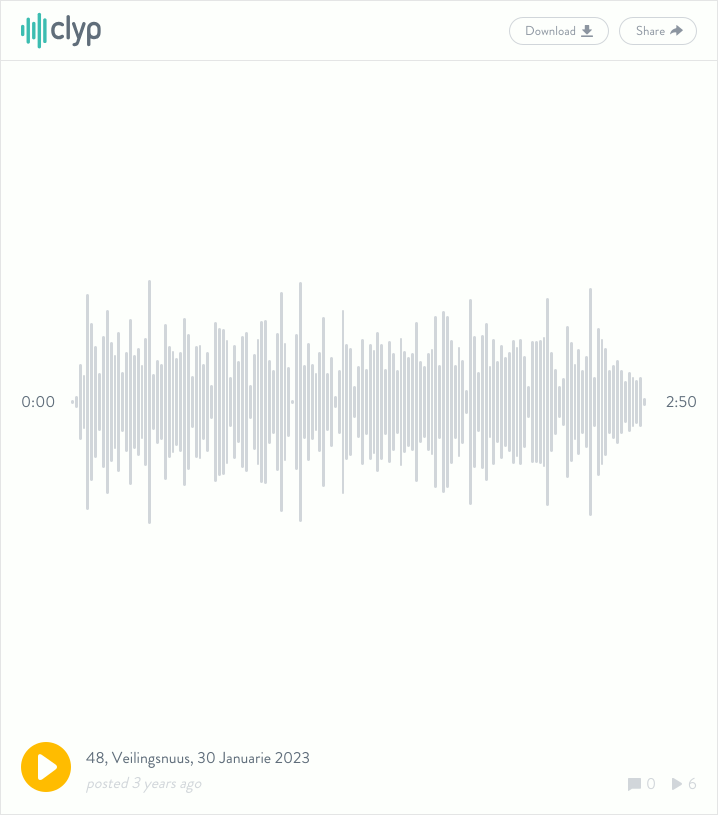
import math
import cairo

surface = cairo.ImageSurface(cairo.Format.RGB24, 718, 815)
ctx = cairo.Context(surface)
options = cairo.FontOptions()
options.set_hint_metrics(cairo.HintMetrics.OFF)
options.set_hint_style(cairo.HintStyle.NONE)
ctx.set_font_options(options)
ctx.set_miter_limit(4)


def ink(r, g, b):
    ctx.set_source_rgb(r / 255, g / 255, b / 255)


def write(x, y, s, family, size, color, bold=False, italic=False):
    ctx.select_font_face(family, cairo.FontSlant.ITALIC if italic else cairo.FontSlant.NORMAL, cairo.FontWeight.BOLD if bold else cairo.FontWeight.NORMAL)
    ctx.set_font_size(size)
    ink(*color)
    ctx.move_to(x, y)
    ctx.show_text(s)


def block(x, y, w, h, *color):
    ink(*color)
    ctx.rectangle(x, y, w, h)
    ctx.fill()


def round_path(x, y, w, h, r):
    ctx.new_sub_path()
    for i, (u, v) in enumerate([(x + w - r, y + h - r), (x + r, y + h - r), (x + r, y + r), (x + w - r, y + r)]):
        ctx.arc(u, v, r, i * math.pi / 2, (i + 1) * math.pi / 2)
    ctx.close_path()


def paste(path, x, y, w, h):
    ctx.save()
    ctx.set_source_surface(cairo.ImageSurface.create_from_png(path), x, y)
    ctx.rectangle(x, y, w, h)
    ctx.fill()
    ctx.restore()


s1 = dict(family="Brandon Grotesque", size=13, color=(140, 149, 160))
s2 = dict(family="Brandon Grotesque", size=16, color=(95, 109, 122))
s3 = dict(family="Brandon Grotesque", size=16, color=(209, 214, 218), italic=True)
s4 = dict(family="Brandon Grotesque", size=16, color=(209, 214, 218))

ink(253, 255, 252)
ctx.paint()
ctx.rectangle(0.5, 0.5, 717, 814)
ink(228, 229, 229)
ctx.set_line_width(1)
ctx.stroke()
block(1, 60, 716, 1, 228, 229, 229)
paste("pic1.png", 21, 12, 80, 37)
round_path(509.5, 17.5, 99, 27, 13.5)
ink(209, 214, 218)
ctx.stroke()
write(525, 35, "Download", **s1)
paste("pic2.png", 581, 25, 12, 12)
round_path(619.5, 17.5, 77, 27, 13.5)
ink(209, 214, 218)
ctx.stroke()
write(636, 35, "Share", **s1)
paste("pic3.png", 670, 25, 13, 11)
paste("pic4.png", 71, 280, 575, 244)
write(21, 407, "0:00", **s2)
write(666, 407, "2:50", **s2)
ink(255, 188, 0)
ctx.new_path()
ctx.arc(46, 767, 25, 0, 2 * math.pi)
ctx.fill()
ink(253, 255, 252)
ctx.new_path()
ctx.move_to(55.5, 769.5)
ctx.curve_to(57.5, 768, 57.5, 766, 55.5, 764.5)
ctx.line_to(42, 755)
ctx.curve_to(40, 753.5, 38, 754, 38, 756.5)
ctx.line_to(38, 777.5)
ctx.curve_to(38, 780, 40, 780.5, 42, 779.5)
ctx.close_path()
ctx.fill()
write(86, 763, "48, Veilingsnuus, 30 Januarie 2023", **s2)
write(86, 788, "posted 3 years ago", **s3)
paste("pic5.png", 628, 778, 13, 13)
write(646, 789, "0", **s4)
paste("pic6.png", 672, 778, 10, 12)
write(688, 789, "6", **s4)
surface.write_to_png("screenshot.png")
